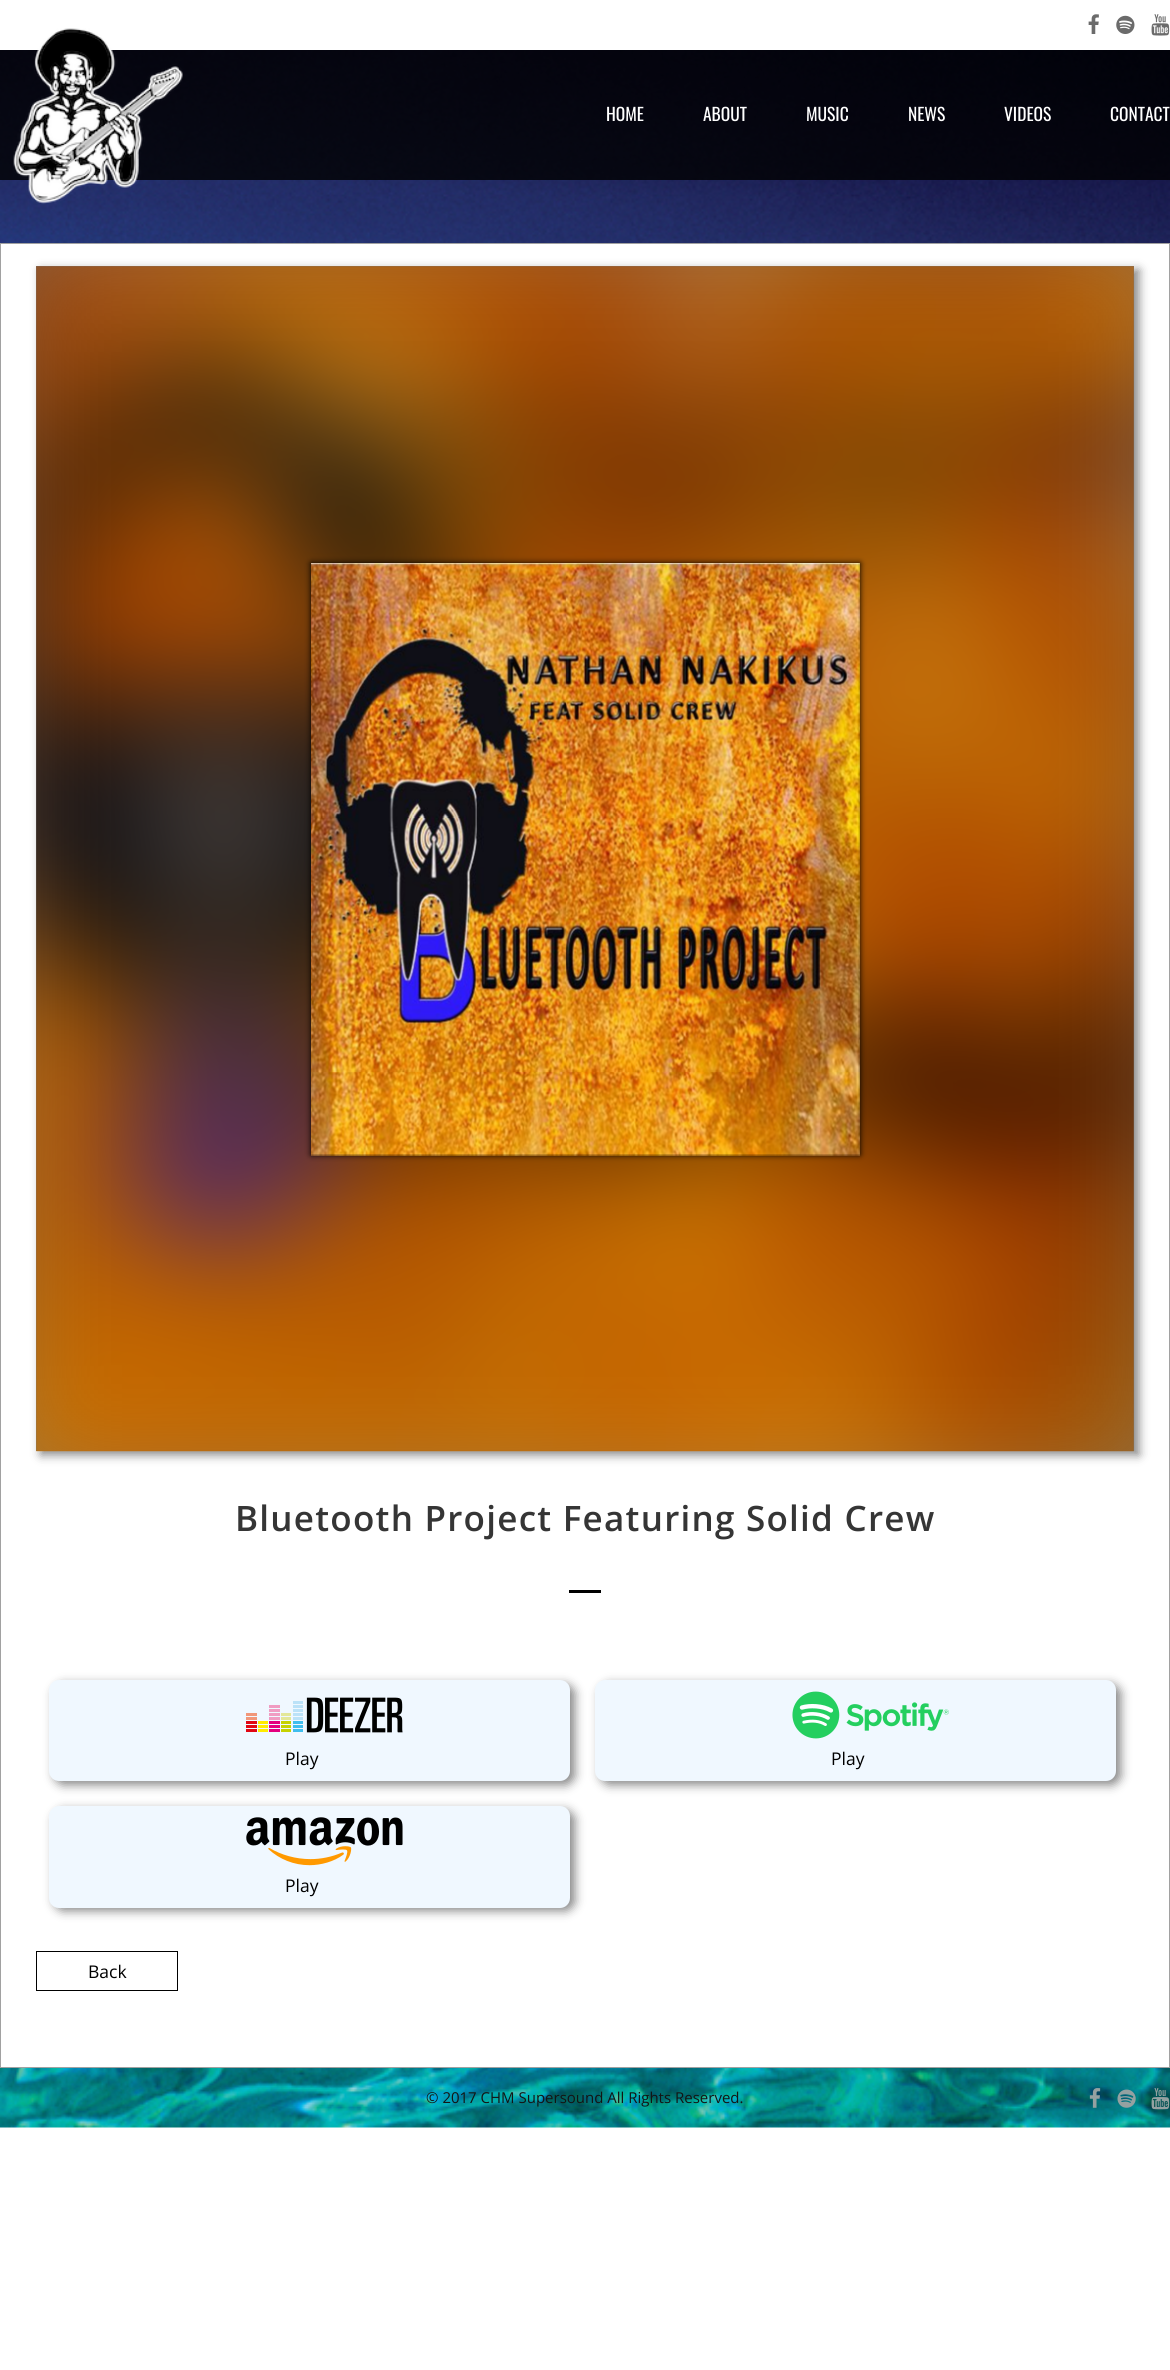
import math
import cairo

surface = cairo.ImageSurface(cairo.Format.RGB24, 1170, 2370)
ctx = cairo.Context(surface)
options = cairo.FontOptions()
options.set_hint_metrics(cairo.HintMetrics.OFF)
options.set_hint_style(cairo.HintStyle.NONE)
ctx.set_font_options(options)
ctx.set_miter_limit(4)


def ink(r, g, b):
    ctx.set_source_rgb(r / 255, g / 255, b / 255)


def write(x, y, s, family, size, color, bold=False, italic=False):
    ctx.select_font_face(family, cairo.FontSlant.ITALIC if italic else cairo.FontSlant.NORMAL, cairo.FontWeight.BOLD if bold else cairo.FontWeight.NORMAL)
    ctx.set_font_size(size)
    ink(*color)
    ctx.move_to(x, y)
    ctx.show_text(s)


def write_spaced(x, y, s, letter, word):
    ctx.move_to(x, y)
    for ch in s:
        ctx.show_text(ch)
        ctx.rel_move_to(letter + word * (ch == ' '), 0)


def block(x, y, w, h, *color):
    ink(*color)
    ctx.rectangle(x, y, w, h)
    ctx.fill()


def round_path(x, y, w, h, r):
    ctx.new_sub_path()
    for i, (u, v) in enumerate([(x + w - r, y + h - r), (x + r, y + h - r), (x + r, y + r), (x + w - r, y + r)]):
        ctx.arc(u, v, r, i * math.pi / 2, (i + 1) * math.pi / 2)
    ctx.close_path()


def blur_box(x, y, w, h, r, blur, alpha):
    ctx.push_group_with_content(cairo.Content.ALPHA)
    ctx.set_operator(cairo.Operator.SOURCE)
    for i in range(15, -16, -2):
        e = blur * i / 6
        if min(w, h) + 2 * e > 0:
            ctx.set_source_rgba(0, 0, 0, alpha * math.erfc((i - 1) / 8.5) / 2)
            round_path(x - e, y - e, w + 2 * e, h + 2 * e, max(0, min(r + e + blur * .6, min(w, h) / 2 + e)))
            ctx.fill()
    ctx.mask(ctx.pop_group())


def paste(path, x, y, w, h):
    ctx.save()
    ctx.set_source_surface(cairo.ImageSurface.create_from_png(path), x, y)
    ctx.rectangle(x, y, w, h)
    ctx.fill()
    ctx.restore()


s1 = dict(family="Oswald", size=17.5, color=(255, 255, 255))
s2 = dict(family="Open Sans", size=17.5, color=(0, 0, 0))
s3 = dict(family="Open Sans", size=15, color=(20, 20, 20))

ink(255, 255, 255)
ctx.paint()
paste("pic1.png", 0, 50, 1170, 2078)
paste("pic2.png", 1088, 14, 11, 20)
paste("pic3.png", 1116, 15, 19, 19)
paste("pic4.png", 1151, 14, 19, 22)
ctx.set_source_rgba(0, 0, 0, 0.8)
ctx.rectangle(0, 50, 1170, 130)
ctx.fill()
paste("pic5.png", 13, 28, 170, 176)
write(606, 121, "HOME", **s1)
write(703, 121, "ABOUT", **s1)
write(806, 121, "MUSIC", **s1)
write(908, 121, "NEWS", **s1)
write(1004, 121, "VIDEOS", **s1)
write(1110, 121, "CONTACT", **s1)
ctx.rectangle(0.5, 243.5, 1169, 1824)
ctx.fill_preserve()
ink(161, 161, 161)
ctx.set_line_width(1)
ctx.stroke()
ink(136, 136, 136)
blur_box(41, 270, 1098, 1185, 0, 5, 1)
block(36, 266, 1098, 1185, 119, 119, 119)
paste("pic6.png", 36, 266, 1098, 1186)
ink(0, 0, 0)
blur_box(311, 563, 549, 592, 0, 3, 1)
paste("pic7.png", 311, 563, 549, 593)
ctx.select_font_face("Open Sans SemiBold")
ctx.set_font_size(35)
ink(53, 53, 53)
write_spaced(235, 1531, "Bluetooth Project Featuring Solid Crew", 1.25, 0)
block(569, 1590, 32, 3, 0, 0, 0)
ink(136, 136, 136)
blur_box(54, 1684, 521, 101, 10, 5, 1)
ink(240, 248, 255)
round_path(49, 1680, 521, 101, 10)
ctx.fill()
paste("pic8.png", 246, 1697, 157, 36)
write(285, 1765, "Play", **s2)
ink(136, 136, 136)
blur_box(600, 1684, 521, 101, 10, 5, 1)
ink(240, 248, 255)
round_path(595, 1680, 521, 101, 10)
ctx.fill()
paste("pic9.png", 792, 1691, 157, 48)
write(831, 1765, "Play", **s2)
ink(136, 136, 136)
blur_box(54, 1810, 521, 101, 10, 5, 1)
ink(240, 248, 255)
round_path(49, 1806, 521, 102, 10)
ctx.fill()
paste("pic10.png", 246, 1817, 157, 49)
write(285, 1892, "Play", **s2)
ctx.rectangle(36.5, 1951.5, 141, 39)
ctx.stroke()
write(88, 1978, "Back", **s2)
write(426, 2103, "© 2017 CHM Supersound All Rights Reserved.", **s3)
paste("pic11.png", 1089, 2088, 12, 20)
paste("pic12.png", 1117, 2089, 19, 19)
paste("pic13.png", 1151, 2088, 19, 22)
surface.write_to_png("screenshot.png")
